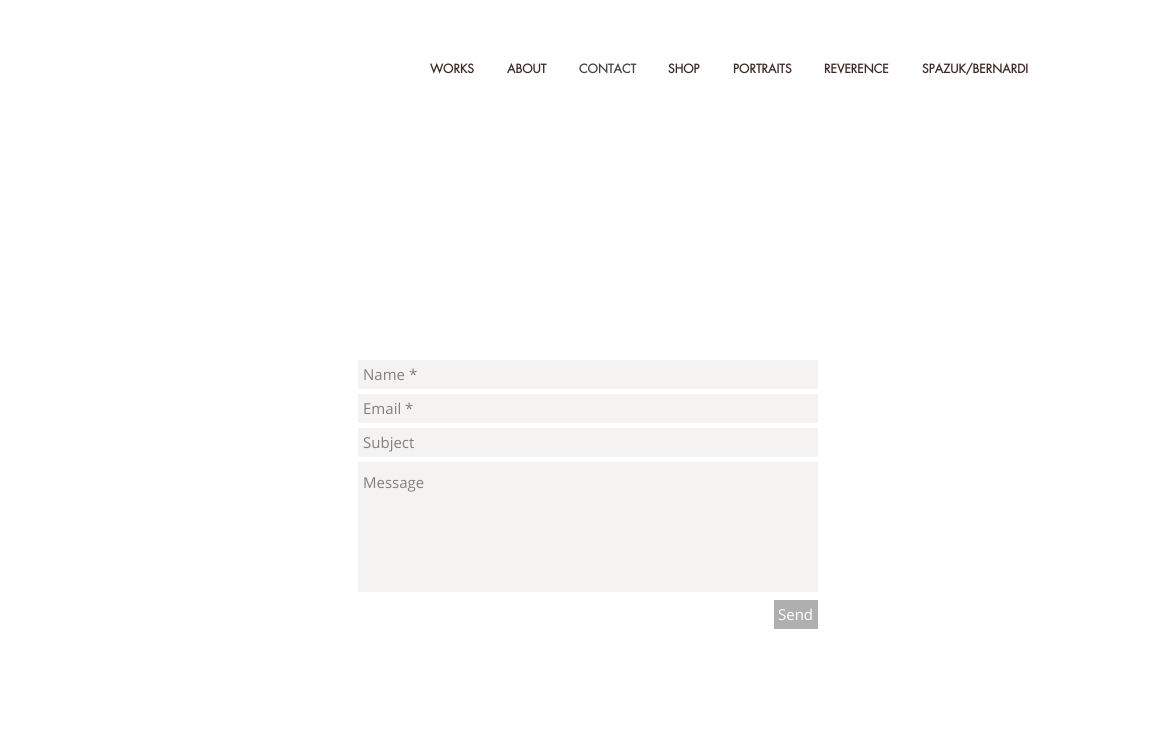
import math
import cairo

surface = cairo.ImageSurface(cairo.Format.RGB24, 1163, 739)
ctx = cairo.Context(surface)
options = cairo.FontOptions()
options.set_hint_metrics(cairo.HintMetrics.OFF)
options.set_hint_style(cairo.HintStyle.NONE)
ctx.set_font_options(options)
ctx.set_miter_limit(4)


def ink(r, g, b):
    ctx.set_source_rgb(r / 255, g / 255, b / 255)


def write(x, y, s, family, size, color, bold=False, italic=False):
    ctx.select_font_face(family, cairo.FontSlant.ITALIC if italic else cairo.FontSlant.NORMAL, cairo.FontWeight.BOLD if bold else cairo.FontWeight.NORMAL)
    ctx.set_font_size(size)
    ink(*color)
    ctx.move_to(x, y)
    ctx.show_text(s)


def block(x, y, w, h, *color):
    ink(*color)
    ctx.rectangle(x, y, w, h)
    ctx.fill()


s1 = dict(family="futura", size=12, color=(63, 41, 37), bold=True)
s2 = dict(family="futura", size=12, color=(65, 65, 65), bold=True)
s3 = dict(family="Open Sans", size=15, color=(128, 128, 128))
s4 = dict(family="Open Sans", size=15, color=(255, 255, 255))

ink(255, 255, 255)
ctx.paint()
write(430, 73, "WORKS", **s1)
write(507, 73, "ABOUT", **s1)
write(579, 73, "CONTACT", **s2)
write(668, 73, "SHOP", **s1)
write(733, 73, "PORTRAITS", **s1)
write(824, 73, "REVERENCE", **s1)
write(922, 73, "SPAZUK/BERNARDI", **s1)
block(358, 360, 460, 29, 244, 243, 242)
write(363, 380, "Name *", **s3)
block(358, 394, 460, 29, 244, 243, 242)
write(363, 414, "Email *", **s3)
block(358, 428, 460, 29, 244, 243, 242)
write(363, 448, "Subject", **s3)
block(358, 462, 460, 130, 244, 243, 242)
write(363, 488, "Message", **s3)
block(774, 600, 44, 29, 175, 175, 175)
write(778, 620, "Send", **s4)
surface.write_to_png("screenshot.png")
